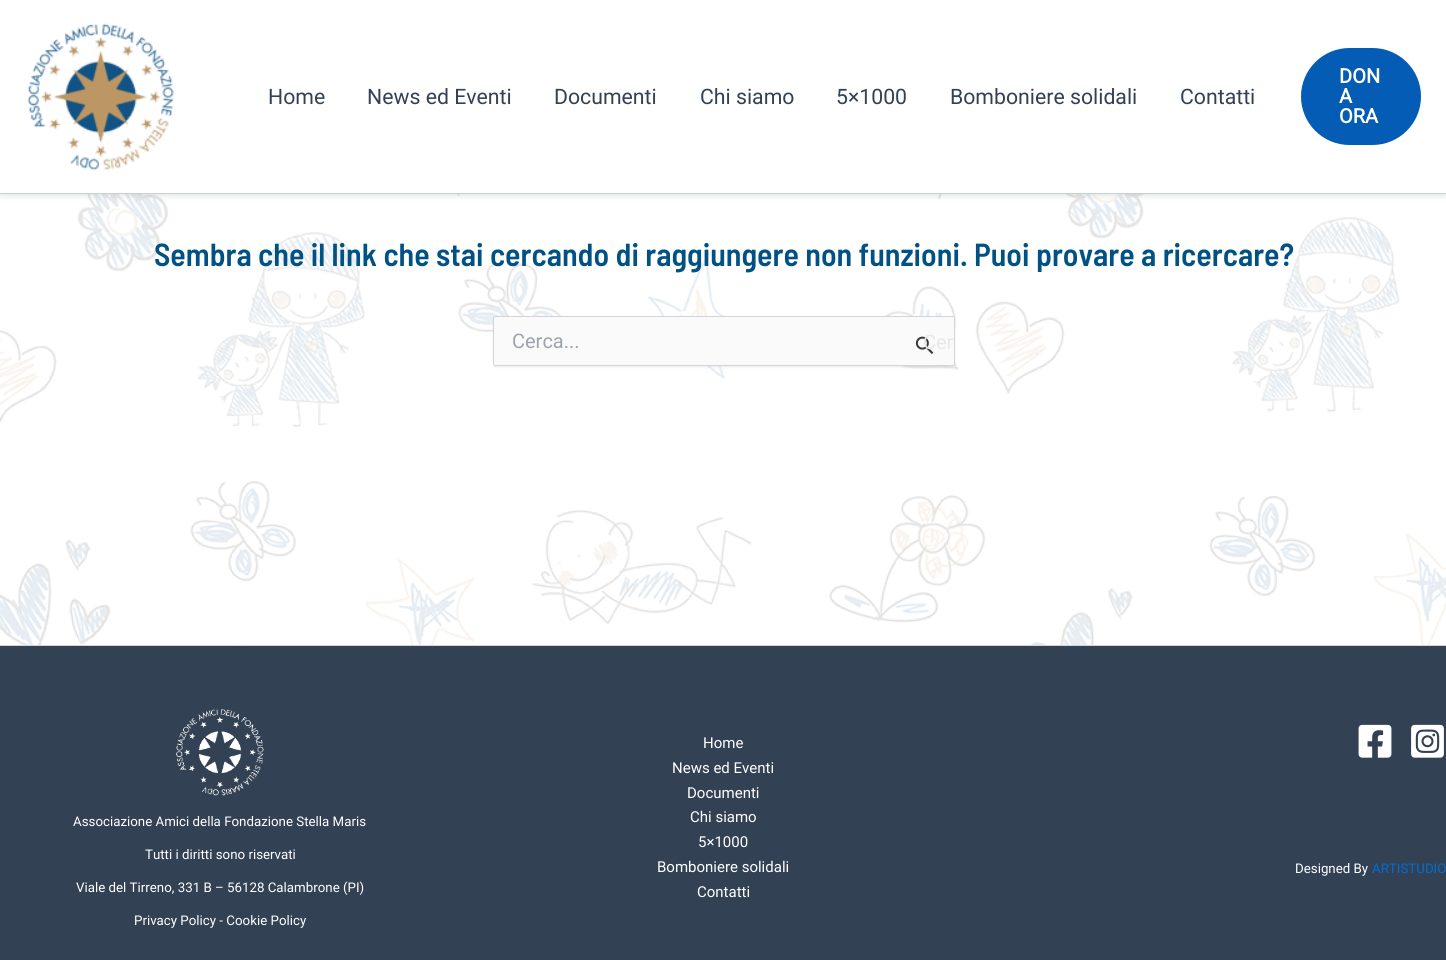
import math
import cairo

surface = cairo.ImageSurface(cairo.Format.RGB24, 1446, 960)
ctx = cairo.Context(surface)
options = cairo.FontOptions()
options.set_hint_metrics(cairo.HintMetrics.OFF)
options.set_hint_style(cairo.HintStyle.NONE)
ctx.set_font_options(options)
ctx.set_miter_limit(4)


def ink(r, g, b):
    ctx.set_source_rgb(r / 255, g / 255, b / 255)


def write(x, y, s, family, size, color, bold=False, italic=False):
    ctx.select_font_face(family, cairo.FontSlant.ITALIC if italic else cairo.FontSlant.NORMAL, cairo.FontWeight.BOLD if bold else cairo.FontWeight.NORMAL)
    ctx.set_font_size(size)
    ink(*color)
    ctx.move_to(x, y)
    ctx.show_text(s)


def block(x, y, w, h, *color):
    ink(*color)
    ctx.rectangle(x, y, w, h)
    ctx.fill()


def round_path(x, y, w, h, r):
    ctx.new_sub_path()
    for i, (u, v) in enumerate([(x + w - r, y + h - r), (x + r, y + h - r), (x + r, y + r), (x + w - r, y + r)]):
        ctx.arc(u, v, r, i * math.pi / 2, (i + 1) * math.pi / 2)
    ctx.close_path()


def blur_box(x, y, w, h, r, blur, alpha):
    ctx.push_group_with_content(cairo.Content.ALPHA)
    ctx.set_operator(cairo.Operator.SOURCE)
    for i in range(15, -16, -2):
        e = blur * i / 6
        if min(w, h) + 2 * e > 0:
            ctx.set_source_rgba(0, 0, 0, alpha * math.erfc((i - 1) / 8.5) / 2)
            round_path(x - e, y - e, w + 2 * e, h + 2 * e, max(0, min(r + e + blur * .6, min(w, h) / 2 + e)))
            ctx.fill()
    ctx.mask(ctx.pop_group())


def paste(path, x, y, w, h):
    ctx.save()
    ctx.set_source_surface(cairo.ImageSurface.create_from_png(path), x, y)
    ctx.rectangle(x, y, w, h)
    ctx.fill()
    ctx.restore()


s1 = dict(family="Roboto", size=21.25, color=(51, 65, 85))
s2 = dict(family="Roboto", size=20, color=(255, 255, 255), bold=True)
s3 = dict(family="Barlow Semi Condensed SemiBold", size=31.9, color=(0, 82, 132))
s4 = dict(family="Roboto", size=20, color=(156, 163, 175))
s5 = dict(family="Roboto", size=20, color=(232, 232, 232))
s6 = dict(family="Roboto", size=13.3, color=(255, 255, 255))
s7 = dict(family="Roboto", size=15, color=(255, 255, 255))
s8 = dict(family="Roboto", size=13.3, color=(4, 107, 210))

ink(255, 255, 255)
ctx.paint()
paste("pic1.png", 0, 194, 1446, 451)
ink(0, 0, 0)
blur_box(0, 3, 1446, 193, 0, 3, 0.1)
block(0, 0, 1446, 193, 255, 255, 255)
block(0, 193, 1446, 1, 197, 209, 209)
paste("pic2.png", 27, 23, 147, 148)
write(268, 104, "Home", **s1)
write(367, 104, "News ed Eventi", **s1)
write(554, 104, "Documenti", **s1)
write(700, 104, "Chi siamo", **s1)
write(836, 104, "5×1000", **s1)
write(950, 104, "Bomboniere solidali", **s1)
write(1180, 104, "Contatti", **s1)
ink(4, 92, 180)
round_path(1301, 48, 120, 97, 48.5)
ctx.fill()
write(1339, 83, "DON", **s2)
write(1339, 103, "A", **s2)
write(1339, 123, "ORA", **s2)
write(154, 266, "Sembra che il link che stai cercando di raggiungere non funzioni. Puoi provare a ricercare?", **s3)
ink(0, 0, 0)
blur_box(493, 318, 462, 50, 2.5, 1, 0.05)
ink(250, 250, 250)
round_path(493.5, 316.5, 461, 49, 2)
ctx.fill_preserve()
ink(209, 213, 219)
ctx.set_line_width(1)
ctx.stroke()
write(512, 348, "Cerca...", **s4)
paste("pic3.png", 915, 336, 19, 18)
write(923, 349, "Cer", **s5)
block(0, 646, 1446, 314, 51, 65, 85)
block(0, 645, 1446, 1, 209, 213, 219)
paste("pic4.png", 176, 709, 88, 87)
write(73, 826, "Associazione Amici della Fondazione Stella Maris", **s6)
write(145, 859, "Tutti i diritti sono riservati", **s6)
write(76, 892, "Viale del Tirreno, 331 B – 56128 Calambrone (PI)", **s6)
write(134, 925, "Privacy Policy - Cookie Policy", **s6)
write(703, 748, "Home", **s7)
write(672, 773, "News ed Eventi", **s7)
write(687, 798, "Documenti", **s7)
write(690, 822, "Chi siamo", **s7)
write(698, 847, "5×1000", **s7)
write(657, 872, "Bomboniere solidali", **s7)
write(697, 897, "Contatti", **s7)
paste("pic5.png", 1358, 724, 34, 34)
paste("pic6.png", 1411, 724, 33, 34)
write(1295, 873, "Designed By", **s6)
write(1372, 873, "ARTISTUDIO", **s8)
surface.write_to_png("screenshot.png")
